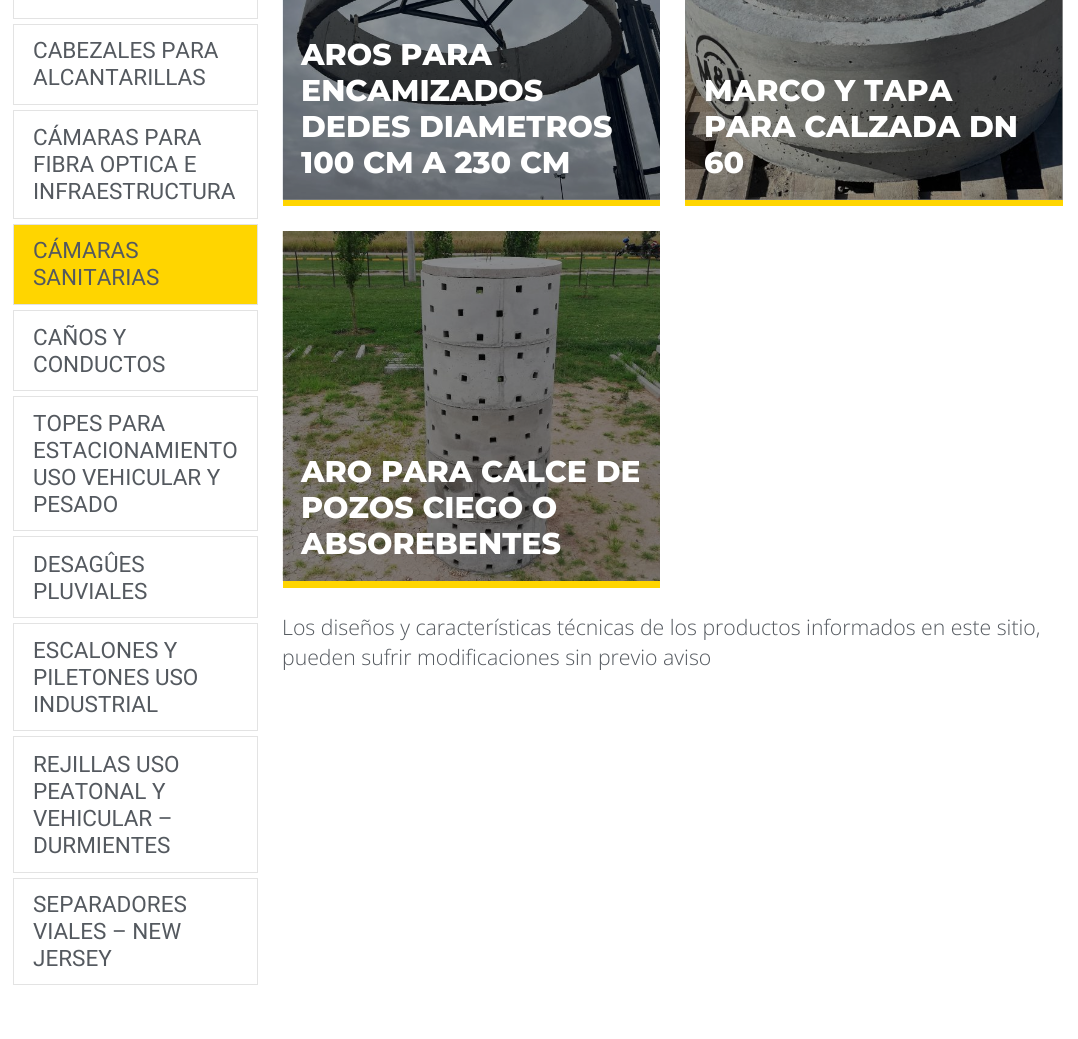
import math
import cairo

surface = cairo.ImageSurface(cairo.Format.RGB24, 1078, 1039)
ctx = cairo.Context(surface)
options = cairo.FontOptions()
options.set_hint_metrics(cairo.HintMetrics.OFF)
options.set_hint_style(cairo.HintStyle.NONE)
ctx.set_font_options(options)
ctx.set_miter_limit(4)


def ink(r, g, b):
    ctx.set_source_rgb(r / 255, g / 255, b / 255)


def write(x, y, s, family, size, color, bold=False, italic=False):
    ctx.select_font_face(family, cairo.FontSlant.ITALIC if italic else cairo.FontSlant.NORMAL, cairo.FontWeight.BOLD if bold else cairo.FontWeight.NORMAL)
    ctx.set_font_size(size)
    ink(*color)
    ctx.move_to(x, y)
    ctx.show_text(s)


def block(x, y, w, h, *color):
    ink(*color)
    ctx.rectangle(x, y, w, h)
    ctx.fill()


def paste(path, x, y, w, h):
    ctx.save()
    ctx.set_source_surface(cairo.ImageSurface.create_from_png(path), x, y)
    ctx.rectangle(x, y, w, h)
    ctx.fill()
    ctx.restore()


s1 = dict(family="Roboto", size=22.5, color=(84, 89, 95))
s2 = dict(family="Montserrat ExtraBold", size=30, color=(255, 255, 255))
s3 = dict(family="Open Sans Light", size=21.25, color=(84, 89, 95))

ink(255, 255, 255)
ctx.paint()
block(685, 0, 378, 200, 153, 153, 153)
block(283, 199, 377, 1, 153, 153, 153)
ctx.rectangle(13.5, -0.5, 244, 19)
ink(227, 227, 227)
ctx.set_line_width(1)
ctx.stroke()
ctx.rectangle(13.5, 24.5, 244, 80)
ctx.stroke()
write(33, 58, "CABEZALES PARA", **s1)
write(33, 85, "ALCANTARILLAS", **s1)
ctx.rectangle(13.5, 110.5, 244, 108)
ink(227, 227, 227)
ctx.stroke()
write(33, 145, "CÁMARAS PARA", **s1)
write(33, 172, "FIBRA OPTICA E", **s1)
write(33, 199, "INFRAESTRUCTURA", **s1)
ink(255, 213, 0)
ctx.rectangle(13.5, 224.5, 244, 80)
ctx.fill_preserve()
ink(227, 227, 227)
ctx.stroke()
write(33, 258, "CÁMARAS", **s1)
write(33, 285, "SANITARIAS", **s1)
ctx.rectangle(13.5, 310.5, 244, 80)
ink(227, 227, 227)
ctx.stroke()
write(33, 345, "CAÑOS Y", **s1)
write(33, 372, "CONDUCTOS", **s1)
ctx.rectangle(13.5, 396.5, 244, 134)
ink(227, 227, 227)
ctx.stroke()
write(33, 431, "TOPES PARA", **s1)
write(33, 458, "ESTACIONAMIENTO", **s1)
write(33, 485, "USO VEHICULAR Y", **s1)
write(33, 512, "PESADO", **s1)
ctx.rectangle(13.5, 536.5, 244, 81)
ink(227, 227, 227)
ctx.stroke()
write(33, 572, "DESAGÛES", **s1)
write(33, 599, "PLUVIALES", **s1)
ctx.rectangle(13.5, 623.5, 244, 107)
ink(227, 227, 227)
ctx.stroke()
write(33, 658, "ESCALONES Y", **s1)
write(33, 685, "PILETONES USO", **s1)
write(33, 712, "INDUSTRIAL", **s1)
ctx.rectangle(13.5, 736.5, 244, 136)
ink(227, 227, 227)
ctx.stroke()
write(33, 772, "REJILLAS USO", **s1)
write(33, 799, "PEATONAL Y", **s1)
write(33, 826, "VEHICULAR –", **s1)
write(33, 853, "DURMIENTES", **s1)
ctx.rectangle(13.5, 878.5, 244, 106)
ink(227, 227, 227)
ctx.stroke()
write(33, 912, "SEPARADORES", **s1)
write(33, 939, "VIALES – NEW", **s1)
write(33, 966, "JERSEY", **s1)
block(283, 200, 377, 6, 255, 213, 0)
paste("pic1.png", 282, 0, 378, 200)
write(301, 65, "AROS PARA", **s2)
write(301, 101, "ENCAMIZADOS", **s2)
write(301, 137, "DEDES DIAMETROS", **s2)
write(301, 173, "100 CM A 230 CM", **s2)
block(685, 200, 378, 6, 255, 213, 0)
paste("pic2.png", 685, 0, 378, 200)
write(704, 101, "MARCO Y TAPA", **s2)
write(704, 137, "PARA CALZADA DN", **s2)
write(704, 173, "60", **s2)
block(283, 581, 377, 7, 255, 213, 0)
paste("pic3.png", 282, 231, 378, 350)
write(301, 482, "ARO PARA CALCE DE", **s2)
write(301, 518, "POZOS CIEGO O", **s2)
write(301, 554, "ABSOREBENTES", **s2)
write(282, 635, "Los diseños y características técnicas de los productos informados en este sitio,", **s3)
write(282, 665, "pueden sufrir modificaciones sin previo aviso", **s3)
surface.write_to_png("screenshot.png")
